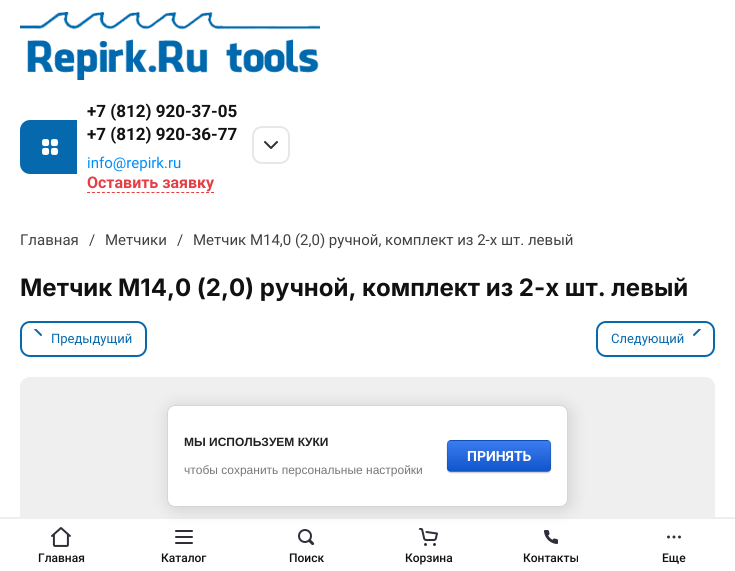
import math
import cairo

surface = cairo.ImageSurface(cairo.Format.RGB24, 735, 571)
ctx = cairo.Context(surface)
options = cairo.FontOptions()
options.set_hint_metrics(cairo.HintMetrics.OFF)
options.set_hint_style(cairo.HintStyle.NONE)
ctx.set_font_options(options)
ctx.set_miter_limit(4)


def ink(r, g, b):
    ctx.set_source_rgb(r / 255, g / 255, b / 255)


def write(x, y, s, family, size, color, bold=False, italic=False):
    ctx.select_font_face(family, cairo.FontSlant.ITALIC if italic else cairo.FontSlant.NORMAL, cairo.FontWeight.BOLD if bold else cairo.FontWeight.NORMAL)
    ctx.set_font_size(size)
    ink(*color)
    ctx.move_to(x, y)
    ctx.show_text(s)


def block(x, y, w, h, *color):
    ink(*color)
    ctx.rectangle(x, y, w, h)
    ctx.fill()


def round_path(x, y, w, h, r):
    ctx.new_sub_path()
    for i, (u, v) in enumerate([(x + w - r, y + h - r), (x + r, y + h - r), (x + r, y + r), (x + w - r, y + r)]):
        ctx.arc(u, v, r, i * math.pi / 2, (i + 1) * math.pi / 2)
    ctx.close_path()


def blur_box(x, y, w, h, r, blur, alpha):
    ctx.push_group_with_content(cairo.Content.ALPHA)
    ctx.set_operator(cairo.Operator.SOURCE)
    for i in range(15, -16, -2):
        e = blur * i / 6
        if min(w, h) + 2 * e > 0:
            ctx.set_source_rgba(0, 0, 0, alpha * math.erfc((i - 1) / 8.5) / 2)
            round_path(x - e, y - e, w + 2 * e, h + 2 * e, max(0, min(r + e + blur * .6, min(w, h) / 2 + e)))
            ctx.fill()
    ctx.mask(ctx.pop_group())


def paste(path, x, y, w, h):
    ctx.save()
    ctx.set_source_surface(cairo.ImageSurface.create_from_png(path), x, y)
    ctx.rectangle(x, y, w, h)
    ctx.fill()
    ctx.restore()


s1 = dict(family="Roboto", size=17, color=(17, 17, 17), bold=True)
s2 = dict(family="Roboto", size=15, color=(0, 142, 252))
s3 = dict(family="Roboto", size=16, color=(229, 62, 68), bold=True)
s4 = dict(family="Roboto", size=15, color=(65, 65, 65))
s5 = dict(family="Inter", size=24, color=(17, 17, 17), bold=True)
s6 = dict(family="Roboto", size=13, color=(7, 105, 173))
s7 = dict(family="Liberation Sans", size=12, color=(33, 33, 33), bold=True)
s8 = dict(family="Liberation Sans", size=12, color=(119, 119, 119))
s9 = dict(family="Roboto", size=14, color=(255, 255, 255), bold=True)
s10 = dict(family="Roboto Medium", size=12, color=(17, 17, 17))

ink(255, 255, 255)
ctx.paint()
paste("pic1.png", 20, 12, 300, 68)
ink(7, 105, 173)
ctx.new_path()
ctx.move_to(30, 120)
ctx.line_to(77, 120)
ctx.line_to(77, 174)
ctx.line_to(30, 174)
ctx.curve_to(24.5, 174, 20, 169.5, 20, 164)
ctx.line_to(20, 130)
ctx.curve_to(20, 124.5, 24.5, 120, 30, 120)
ctx.close_path()
ctx.fill()
paste("pic2.png", 42, 139, 16, 16)
write(87, 117, "+7 (812) 920-37-05", **s1)
write(87, 140, "+7 (812) 920-36-77", **s1)
write(87, 168, "info@repirk.ru", **s2)
write(87, 188, "Оставить заявку", **s3)
ctx.new_path()
ctx.move_to(87, 192.5)
ctx.line_to(214, 192.5)
ctx.set_line_width(1)
ctx.set_dash([3, 1.96])
ctx.stroke()
round_path(253, 127, 36, 36, 9)
ink(231, 231, 231)
ctx.set_line_width(2)
ctx.set_dash([])
ctx.stroke()
paste("pic3.png", 264, 141, 14, 8)
write(20, 245, "Главная", **s4)
write(89, 245, "/", **s4)
write(105, 245, "Метчики", **s4)
write(177, 245, "/", **s4)
write(193, 245, "Метчик М14,0 (2,0) ручной, комплект из 2-х шт. левый", **s4)
write(20, 296, "Метчик М14,0 (2,0) ручной, комплект из 2-х шт. левый", **s5)
round_path(21, 322, 125, 34, 9)
ink(7, 105, 173)
ctx.stroke()
paste("pic4.png", 34, 329, 8, 7)
write(51, 343, "Предыдущий", **s6)
round_path(597, 322, 117, 34, 9)
ctx.stroke()
write(611, 343, "Следующий", **s6)
paste("pic5.png", 693, 329, 8, 7)
ink(239, 239, 239)
round_path(20, 377, 695, 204, 10)
ctx.fill()
block(20, 519, 695, 52, 255, 255, 255)
block(0, 517, 735, 2, 237, 237, 243)
paste("pic7.png", 175, 530, 18, 14)
paste("pic8.png", 298, 529, 17, 17)
paste("pic9.png", 419, 528, 19, 18)
paste("pic10.png", 544, 530, 14, 14)
ink(0, 0, 0)
blur_box(169, 407, 401, 102, 8, 9, 0.14)
ink(255, 255, 255)
round_path(167.5, 405.5, 400, 101, 7.5)
ctx.fill_preserve()
ink(214, 214, 214)
ctx.set_line_width(1)
ctx.stroke()
write(184, 446, "МЫ ИСПОЛЬЗУЕМ КУКИ", **s7)
write(184, 474, "чтобы сохранить персональные настройки", **s8)
ink(0, 0, 0)
blur_box(447, 441, 104, 32, 4, 0.5, 0.2)
ctx.save()
round_path(447, 440, 104, 32, 4)
ctx.clip()
gradient = cairo.LinearGradient(499, 411, 499, 441)
gradient.add_color_stop_rgba(0, 0.231, 0.486, 0.937, 1)
gradient.add_color_stop_rgba(1, 0.067, 0.333, 0.8, 1)
ctx.set_source(gradient)
ctx.rectangle(447, 440, 104, 1)
ctx.fill()
gradient = cairo.LinearGradient(499, 441, 499, 471)
gradient.add_color_stop_rgba(0, 0.231, 0.486, 0.937, 1)
gradient.add_color_stop_rgba(1, 0.067, 0.333, 0.8, 1)
ctx.set_source(gradient)
ctx.rectangle(447, 441, 104, 30)
ctx.fill()
gradient = cairo.LinearGradient(499, 471, 499, 501)
gradient.add_color_stop_rgba(0, 0.231, 0.486, 0.937, 1)
gradient.add_color_stop_rgba(1, 0.067, 0.333, 0.8, 1)
ctx.set_source(gradient)
ctx.rectangle(447, 471, 104, 1)
ctx.fill()
ctx.restore()
round_path(447.5, 440.5, 103, 31, 3.5)
ctx.set_source_rgba(0, 0, 0, 0.1)
ctx.stroke()
write(467, 461, "ПРИНЯТЬ", **s9)
paste("pic6.png", 51, 527, 20, 20)
write(38, 562, "Главная", **s10)
write(161, 562, "Каталог", **s10)
write(289, 562, "Поиск", **s10)
write(405, 562, "Корзина", **s10)
write(523, 562, "Контакты", **s10)
paste("pic11.png", 667, 535, 14, 4)
write(662, 562, "Еще", **s10)
surface.write_to_png("screenshot.png")
